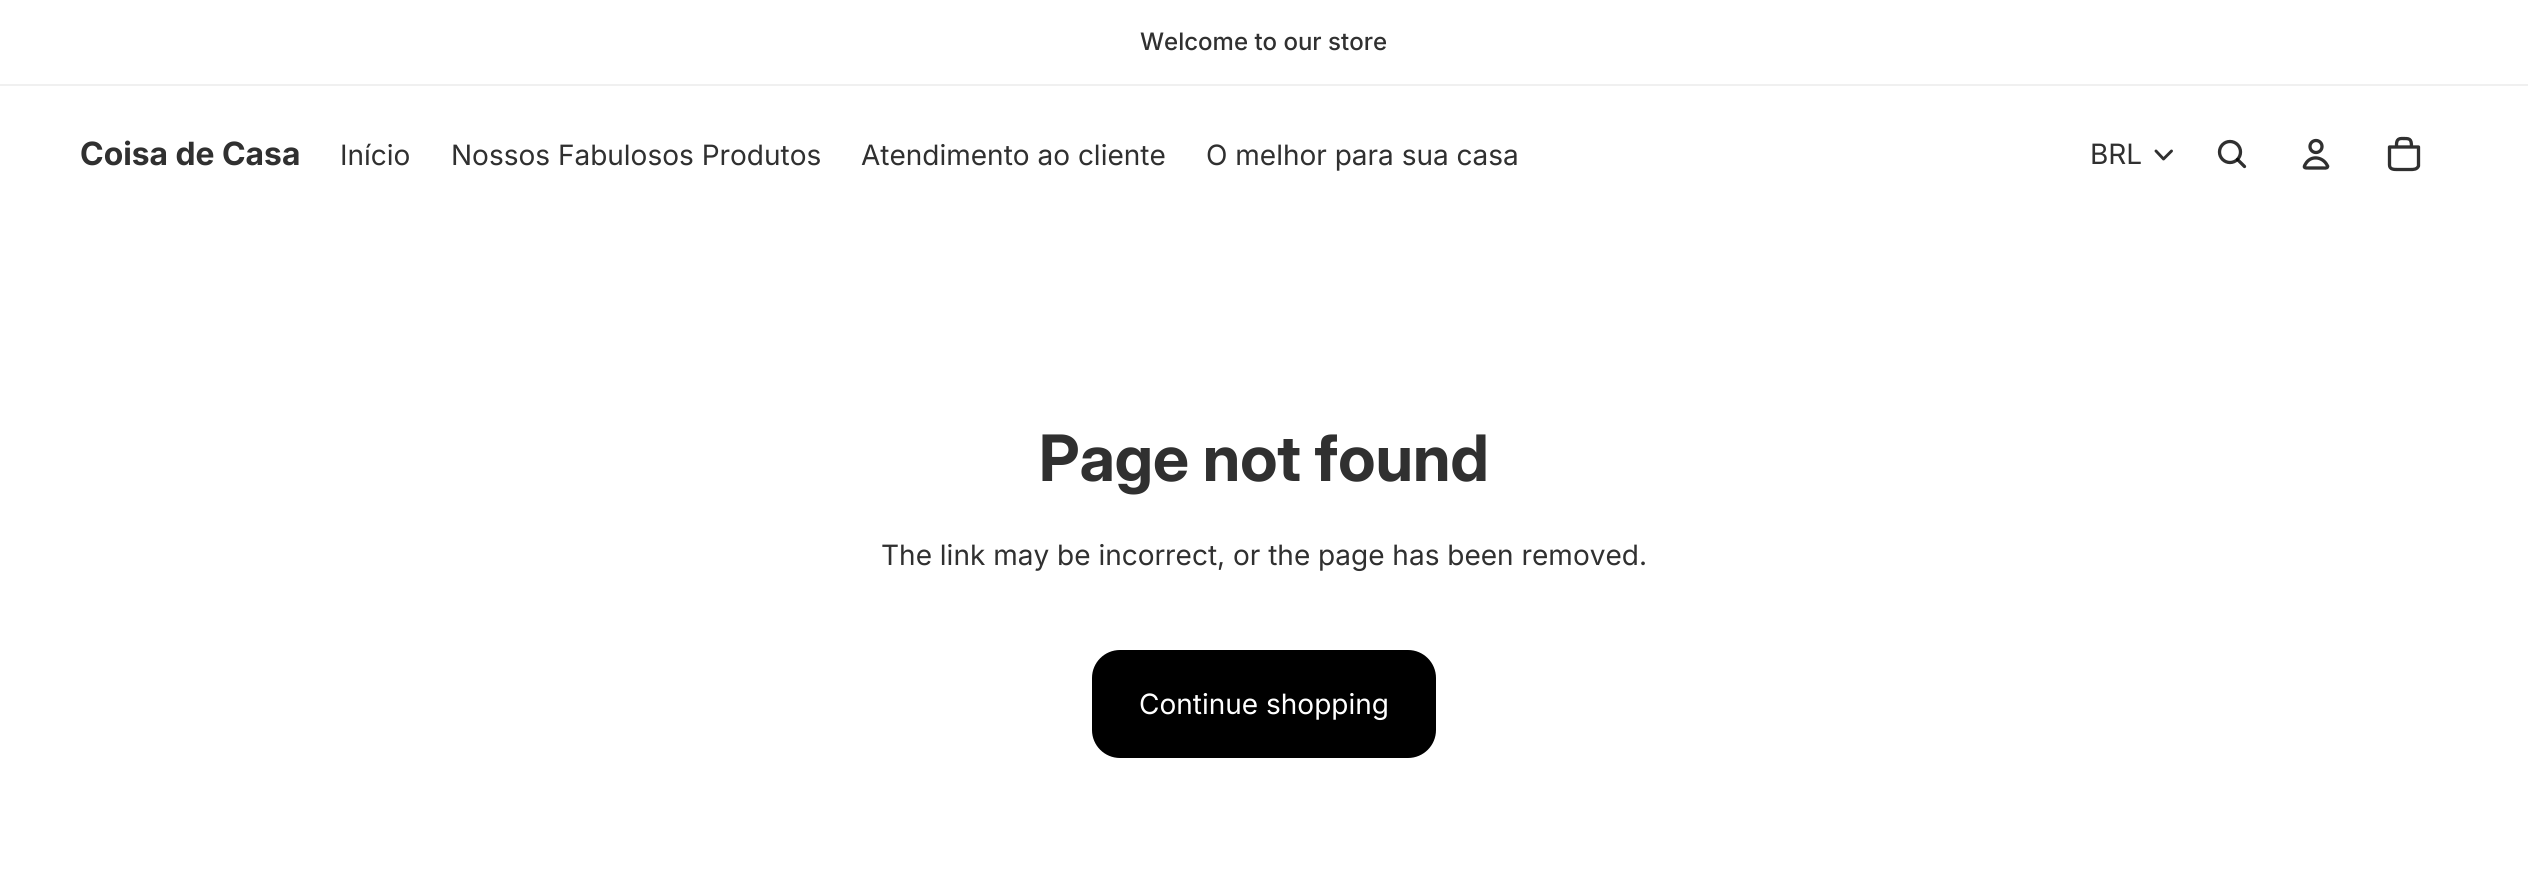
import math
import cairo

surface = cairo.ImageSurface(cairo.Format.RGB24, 2528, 892)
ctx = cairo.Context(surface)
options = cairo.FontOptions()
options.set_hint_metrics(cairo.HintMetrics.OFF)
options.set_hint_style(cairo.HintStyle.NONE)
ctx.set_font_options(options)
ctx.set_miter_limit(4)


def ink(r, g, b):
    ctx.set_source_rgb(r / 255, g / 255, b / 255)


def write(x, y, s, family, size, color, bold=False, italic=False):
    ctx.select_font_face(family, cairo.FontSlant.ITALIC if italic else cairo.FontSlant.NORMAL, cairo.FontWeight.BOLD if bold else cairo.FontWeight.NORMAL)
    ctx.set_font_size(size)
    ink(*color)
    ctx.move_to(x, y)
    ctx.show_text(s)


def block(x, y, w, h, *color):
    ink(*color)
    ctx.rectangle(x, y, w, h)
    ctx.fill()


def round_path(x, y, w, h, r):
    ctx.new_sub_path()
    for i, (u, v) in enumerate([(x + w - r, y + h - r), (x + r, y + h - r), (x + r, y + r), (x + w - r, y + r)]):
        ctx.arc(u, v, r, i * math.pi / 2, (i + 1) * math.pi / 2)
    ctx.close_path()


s1 = dict(family="Inter Medium", size=24, color=(48, 48, 48))
s2 = dict(family="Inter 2", size=32, color=(48, 48, 48), bold=True)
s3 = dict(family="Inter", size=28, color=(48, 48, 48))
s4 = dict(family="Inter", size=64, color=(48, 48, 48), bold=True)
s5 = dict(family="Inter", size=28, color=(255, 255, 255))

ink(255, 255, 255)
ctx.paint()
block(0, 84, 2528, 2, 240, 240, 240)
write(1140, 50, "Welcome to our store", **s1)
write(80, 165, "Coisa de Casa", **s2)
write(340, 165, "Início", **s3)
write(451, 165, "Nossos Fabulosos Produtos", **s3)
write(861, 165, "Atendimento ao cliente", **s3)
write(1206, 165, "O melhor para sua casa", **s3)
write(2090, 164, "BRL", **s3)
ctx.new_path()
ctx.move_to(2171.5, 151)
ctx.line_to(2163.5, 159)
ctx.line_to(2156, 151)
ctx.set_line_width(2.9)
ctx.set_line_cap(cairo.LineCap.ROUND)
ctx.set_line_join(cairo.LineJoin.ROUND)
ctx.stroke()
ctx.arc(2230, 152, 10.5, 0, 2 * math.pi)
ctx.set_line_width(3.3)
ctx.set_line_cap(cairo.LineCap.BUTT)
ctx.set_line_join(cairo.LineJoin.MITER)
ctx.stroke()
ctx.new_path()
ctx.move_to(2237.5, 159.5)
ctx.line_to(2244.5, 166.5)
ctx.set_source_rgba(0, 0, 0, 0.81)
ctx.set_line_cap(cairo.LineCap.ROUND)
ctx.set_line_join(cairo.LineJoin.ROUND)
ctx.stroke()
ctx.arc(2316, 146.5, 6, 0, 2 * math.pi)
ink(48, 48, 48)
ctx.set_line_cap(cairo.LineCap.BUTT)
ctx.set_line_join(cairo.LineJoin.MITER)
ctx.stroke()
ctx.new_path()
ctx.move_to(2305.5, 164)
ctx.curve_to(2303, 168, 2304.5, 168, 2309, 168)
ctx.line_to(2323, 168)
ctx.curve_to(2323.5, 168, 2327, 168.5, 2327.5, 167)
ctx.curve_to(2328, 166.5, 2327.5, 165.5, 2327, 165)
ctx.curve_to(2322.5, 156.5, 2310.5, 155, 2305.5, 164)
ctx.set_line_cap(cairo.LineCap.ROUND)
ctx.set_line_join(cairo.LineJoin.ROUND)
ctx.stroke()
ctx.new_path()
ctx.move_to(2389.5, 147)
ctx.line_to(2418.5, 147)
ctx.line_to(2418.5, 166)
ctx.curve_to(2417, 169.5, 2413.5, 169.5, 2410.5, 169.5)
ctx.line_to(2397.5, 169.5)
ctx.curve_to(2394, 169.5, 2389.5, 169.5, 2389.5, 165)
ctx.close_path()
ctx.move_to(2401.5, 138.5)
ctx.curve_to(2409.5, 138.5, 2411.5, 138, 2411.5, 147)
ctx.line_to(2396.5, 147)
ctx.curve_to(2396.5, 143.5, 2396, 138.5, 2401.5, 138.5)
ctx.stroke()
write(1039, 481, "Page not found", **s4)
write(881, 565, "The link may be incorrect, or the page has been removed.", **s3)
ink(0, 0, 0)
round_path(1092, 650, 344, 108, 28)
ctx.fill()
write(1139, 714, "Continue shopping", **s5)
surface.write_to_png("screenshot.png")
